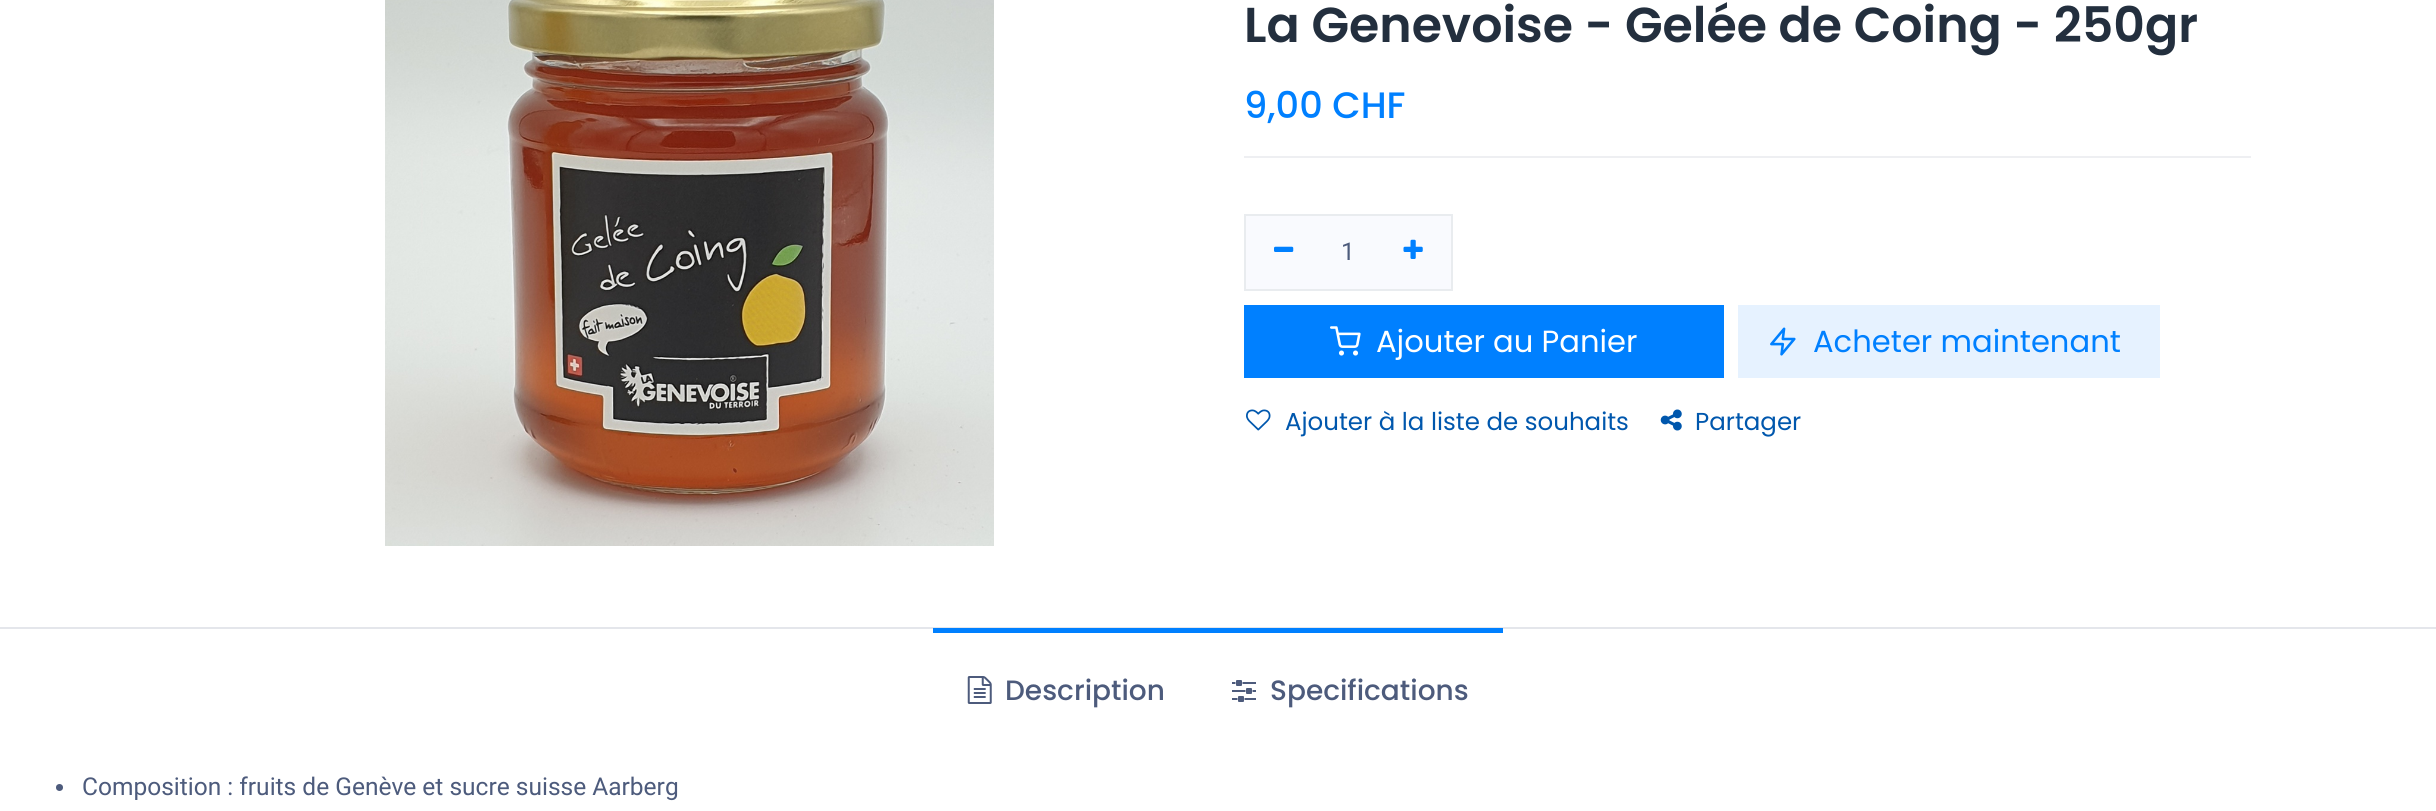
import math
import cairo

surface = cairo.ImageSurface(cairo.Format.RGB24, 2436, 811)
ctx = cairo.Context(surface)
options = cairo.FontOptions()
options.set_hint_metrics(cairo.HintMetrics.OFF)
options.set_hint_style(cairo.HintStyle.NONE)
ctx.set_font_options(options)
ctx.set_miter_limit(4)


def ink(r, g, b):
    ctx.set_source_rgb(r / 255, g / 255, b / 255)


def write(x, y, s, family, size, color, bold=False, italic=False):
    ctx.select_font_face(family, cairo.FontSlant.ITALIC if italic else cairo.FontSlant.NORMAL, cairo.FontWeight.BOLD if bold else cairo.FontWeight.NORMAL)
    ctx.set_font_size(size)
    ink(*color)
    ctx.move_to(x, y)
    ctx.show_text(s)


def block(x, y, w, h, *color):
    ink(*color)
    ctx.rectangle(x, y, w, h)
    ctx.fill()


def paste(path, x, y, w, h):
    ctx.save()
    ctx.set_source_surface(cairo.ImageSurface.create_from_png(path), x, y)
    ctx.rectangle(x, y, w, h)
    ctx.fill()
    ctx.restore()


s1 = dict(family="Poppins SemiBold", size=49, color=(35, 47, 62))
s2 = dict(family="Poppins Medium", size=36.75, color=(0, 128, 255))
s3 = dict(family="Roboto", size=24.5, color=(77, 91, 124))
s4 = dict(family="Poppins", size=30.6, color=(255, 255, 255))
s5 = dict(family="Poppins", size=30.6, color=(0, 128, 255))
s6 = dict(family="Poppins", size=24.5, color=(0, 87, 173))
s7 = dict(family="Poppins Medium", size=28, color=(77, 91, 124))

ink(255, 255, 255)
ctx.paint()
paste("pic1.png", 385, 0, 609, 546)
write(1244, 42, "La Genevoise - Gelée de Coing - 250gr", **s1)
write(1244, 118, "9,00 CHF", **s2)
block(1244, 156, 1007, 2, 238, 239, 242)
ink(249, 250, 254)
ctx.rectangle(1245, 215, 207, 75)
ctx.fill_preserve()
ink(233, 236, 239)
ctx.stroke()
paste("pic2.png", 1274, 246, 20, 6)
write(1341, 260, "1", **s3)
paste("pic3.png", 1403, 239, 20, 20)
block(1244, 305, 480, 73, 0, 128, 255)
paste("pic4.png", 1330, 326, 31, 30)
write(1376, 352, "Ajouter au Panier", **s4)
block(1738, 305, 422, 73, 230, 242, 255)
paste("pic5.png", 1770, 327, 26, 29)
write(1813, 352, "Acheter maintenant", **s5)
paste("pic6.png", 1246, 409, 25, 22)
write(1285, 430, "Ajouter à la liste de souhaits", **s6)
paste("pic7.png", 1660, 409, 22, 22)
write(1695, 430, "Partager", **s6)
block(0, 627, 2436, 2, 228, 230, 235)
block(933, 628, 570, 5, 0, 128, 255)
paste("pic8.png", 967, 676, 25, 28)
write(1005, 700, "Description", **s7)
paste("pic9.png", 1232, 680, 24, 22)
write(1270, 700, "Specifications", **s7)
ctx.new_path()
ctx.arc(59.5, 787.5, 3.5, 0, 2 * math.pi)
ctx.fill()
write(82, 795, "Composition : fruits de Genève et sucre suisse Aarberg", **s3)
surface.write_to_png("screenshot.png")
